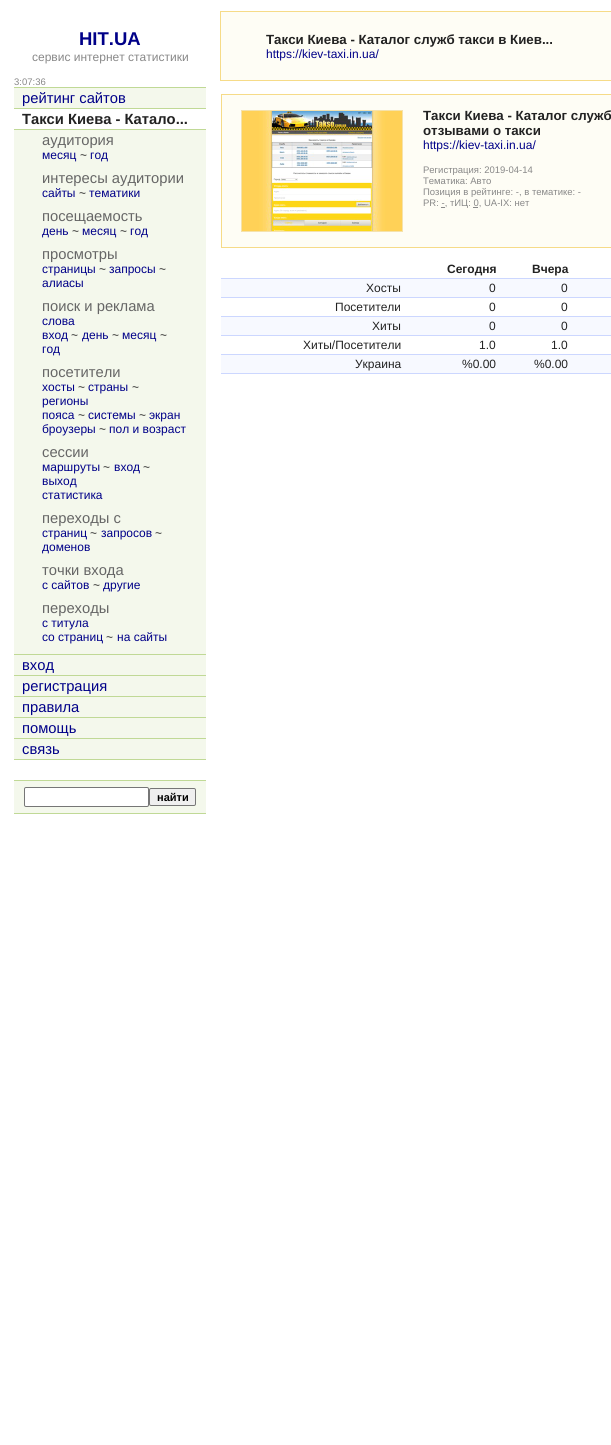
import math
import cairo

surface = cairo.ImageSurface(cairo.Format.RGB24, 611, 1445)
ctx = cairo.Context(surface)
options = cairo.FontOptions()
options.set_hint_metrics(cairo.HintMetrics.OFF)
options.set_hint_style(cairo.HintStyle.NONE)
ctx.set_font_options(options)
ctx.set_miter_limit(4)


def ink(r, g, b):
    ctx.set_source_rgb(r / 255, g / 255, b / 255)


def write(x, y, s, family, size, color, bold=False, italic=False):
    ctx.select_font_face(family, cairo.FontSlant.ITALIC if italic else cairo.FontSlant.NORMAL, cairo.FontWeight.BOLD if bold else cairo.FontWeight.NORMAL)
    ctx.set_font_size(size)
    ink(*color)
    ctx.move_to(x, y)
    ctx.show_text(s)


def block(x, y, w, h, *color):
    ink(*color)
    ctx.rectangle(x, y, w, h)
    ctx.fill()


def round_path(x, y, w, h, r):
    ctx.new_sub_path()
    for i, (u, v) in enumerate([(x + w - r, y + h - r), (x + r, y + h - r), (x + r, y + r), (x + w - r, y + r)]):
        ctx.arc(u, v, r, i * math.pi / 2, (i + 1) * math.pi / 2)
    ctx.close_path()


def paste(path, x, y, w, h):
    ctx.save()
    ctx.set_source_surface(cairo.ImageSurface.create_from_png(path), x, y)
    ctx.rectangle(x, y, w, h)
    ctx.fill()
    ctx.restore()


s1 = dict(family="Liberation Sans", size=18.5, color=(0, 0, 136), bold=True)
s2 = dict(family="Liberation Sans", size=12, color=(136, 136, 136))
s3 = dict(family="Liberation Sans", size=9.5, color=(136, 136, 136))
s4 = dict(family="Liberation Sans", size=14.75, color=(0, 0, 136))
s5 = dict(family="Liberation Sans", size=14.75, color=(34, 34, 34), bold=True)
s6 = dict(family="Liberation Sans", size=14.75, color=(102, 102, 102))
s7 = dict(family="Liberation Sans", size=12, color=(0, 0, 136))
s8 = dict(family="Liberation Sans", size=12, color=(34, 34, 34))
s9 = dict(family="Liberation Sans", size=11, color=(0, 0, 0), bold=True)
s10 = dict(family="Liberation Sans", size=13.3, color=(34, 34, 34), bold=True)
s11 = dict(family="Liberation Sans", size=12, color=(34, 34, 34), bold=True)

ink(255, 255, 255)
ctx.paint()
write(79, 45, "HIT.UA", **s1)
write(32, 61, "сервис интернет статистики", **s2)
write(14, 85, "3:07:36", **s3)
block(14, 88, 192, 671, 244, 248, 236)
block(14, 87, 192, 1, 192, 217, 150)
write(22, 103, "рейтинг сайтов", **s4)
block(14, 109, 192, 20, 255, 255, 255)
block(14, 108, 192, 1, 192, 217, 150)
write(22, 124, "Такси Киева - Катало...", **s5)
block(14, 129, 192, 1, 192, 217, 150)
write(42, 145, "аудитория", **s6)
write(42, 159, "месяц", **s7)
write(80, 159, "~", **s8)
write(90, 159, "год", **s7)
write(42, 183, "интересы аудитории", **s6)
write(42, 197, "сайты", **s7)
write(79, 197, "~", **s8)
write(89, 197, "тематики", **s7)
write(42, 221, "посещаемость", **s6)
write(42, 235, "день", **s7)
write(72, 235, "~", **s8)
write(82, 235, "месяц", **s7)
write(120, 235, "~", **s8)
write(130, 235, "год", **s7)
write(42, 259, "просмотры", **s6)
write(42, 273, "страницы", **s7)
write(99, 273, "~", **s8)
write(109, 273, "запросы", **s7)
write(159, 273, "~", **s8)
write(42, 287, "алиасы", **s7)
write(42, 311, "поиск и реклама", **s6)
write(42, 325, "слова", **s7)
write(42, 339, "вход", **s7)
write(71, 339, "~", **s8)
write(82, 339, "день", **s7)
write(112, 339, "~", **s8)
write(122, 339, "месяц", **s7)
write(160, 339, "~", **s8)
write(42, 353, "год", **s7)
write(42, 377, "посетители", **s6)
write(42, 391, "хосты", **s7)
write(78, 391, "~", **s8)
write(88, 391, "страны", **s7)
write(132, 391, "~", **s8)
write(42, 405, "регионы", **s7)
write(42, 419, "пояса", **s7)
write(78, 419, "~", **s8)
write(88, 419, "системы", **s7)
write(139, 419, "~", **s8)
write(149, 419, "экран", **s7)
write(42, 433, "броузеры", **s7)
write(99, 433, "~", **s8)
write(109, 433, "пол и возраст", **s7)
write(42, 457, "сессии", **s6)
write(42, 471, "маршруты", **s7)
write(103, 471, "~", **s8)
write(114, 471, "вход", **s7)
write(143, 471, "~", **s8)
write(42, 485, "выход", **s7)
write(42, 499, "статистика", **s7)
write(42, 523, "переходы с", **s6)
write(42, 537, "страниц", **s7)
write(90, 537, "~", **s8)
write(101, 537, "запросов", **s7)
write(155, 537, "~", **s8)
write(42, 551, "доменов", **s7)
write(42, 575, "точки входа", **s6)
write(42, 589, "с сайтов", **s7)
write(93, 589, "~", **s8)
write(103, 589, "другие", **s7)
write(42, 613, "переходы", **s6)
write(42, 627, "с титула", **s7)
write(42, 641, "со страниц", **s7)
write(106, 641, "~", **s8)
write(117, 641, "на сайты", **s7)
block(14, 654, 192, 1, 192, 217, 150)
write(22, 670, "вход", **s4)
block(14, 675, 192, 1, 192, 217, 150)
write(22, 691, "регистрация", **s4)
block(14, 696, 192, 1, 192, 217, 150)
write(22, 712, "правила", **s4)
block(14, 717, 192, 1, 192, 217, 150)
write(22, 733, "помощь", **s4)
block(14, 738, 192, 1, 192, 217, 150)
write(22, 754, "связь", **s4)
block(14, 759, 192, 1, 192, 217, 150)
block(14, 781, 192, 32, 244, 248, 236)
block(14, 780, 192, 1, 192, 217, 150)
block(14, 813, 192, 1, 192, 217, 150)
ink(255, 255, 255)
round_path(24.5, 787.5, 124, 19, 1.5)
ctx.fill_preserve()
ink(118, 118, 118)
ctx.set_line_width(1)
ctx.stroke()
ink(239, 239, 239)
round_path(149.5, 788.5, 46, 17, 1.5)
ctx.fill_preserve()
ink(118, 118, 118)
ctx.stroke()
write(157, 801, "найти", **s9)
ink(254, 253, 245)
ctx.rectangle(220.5, 11.5, 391, 69)
ctx.fill_preserve()
ink(246, 219, 136)
ctx.stroke()
write(266, 44, "Такси Киева - Каталог служб такси в Киев...", **s10)
write(266, 58, "https://kiev-taxi.in.ua/", **s7)
ink(254, 253, 245)
ctx.rectangle(221.5, 94.5, 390, 153)
ctx.fill_preserve()
ink(246, 219, 136)
ctx.stroke()
ctx.rectangle(241.5, 110.5, 161, 121)
ink(245, 226, 171)
ctx.stroke()
paste("pic1.png", 242, 111, 160, 120)
write(423, 120, "Такси Киева - Каталог служб", **s10)
write(423, 135, "отзывами о такси", **s10)
write(423, 149, "https://kiev-taxi.in.ua/", **s7)
write(423, 173, "Регистрация: 2019-04-14", **s3)
write(423, 184, "Тематика: Авто", **s3)
write(423, 195, "Позиция в рейтинге: -, в тематике: -", **s3)
write(423, 206, "PR: -, тИЦ: 0, UA-IX: нет", **s3)
block(441, 207, 4, 1, 136, 136, 136)
block(473, 207, 5, 1, 136, 136, 136)
write(447, 273, "Сегодня", **s11)
write(532, 273, "Вчера", **s11)
block(221, 278, 390, 1, 204, 215, 255)
block(221, 279, 390, 18, 247, 249, 255)
block(221, 297, 390, 1, 204, 215, 255)
write(366, 292, "Хосты", **s8)
write(489, 292, "0", **s8)
write(561, 292, "0", **s8)
block(221, 316, 390, 1, 204, 215, 255)
write(335, 311, "Посетители", **s8)
write(489, 311, "0", **s8)
write(561, 311, "0", **s8)
block(221, 317, 390, 18, 247, 249, 255)
block(221, 335, 390, 1, 204, 215, 255)
write(372, 330, "Хиты", **s8)
write(489, 330, "0", **s8)
write(561, 330, "0", **s8)
block(221, 354, 390, 1, 204, 215, 255)
write(303, 349, "Хиты/Посетители", **s8)
write(479, 349, "1.0", **s8)
write(551, 349, "1.0", **s8)
block(221, 355, 390, 18, 247, 249, 255)
block(221, 373, 390, 1, 204, 215, 255)
write(355, 368, "Украина", **s8)
write(462, 368, "%0.00", **s8)
write(534, 368, "%0.00", **s8)
surface.write_to_png("screenshot.png")
